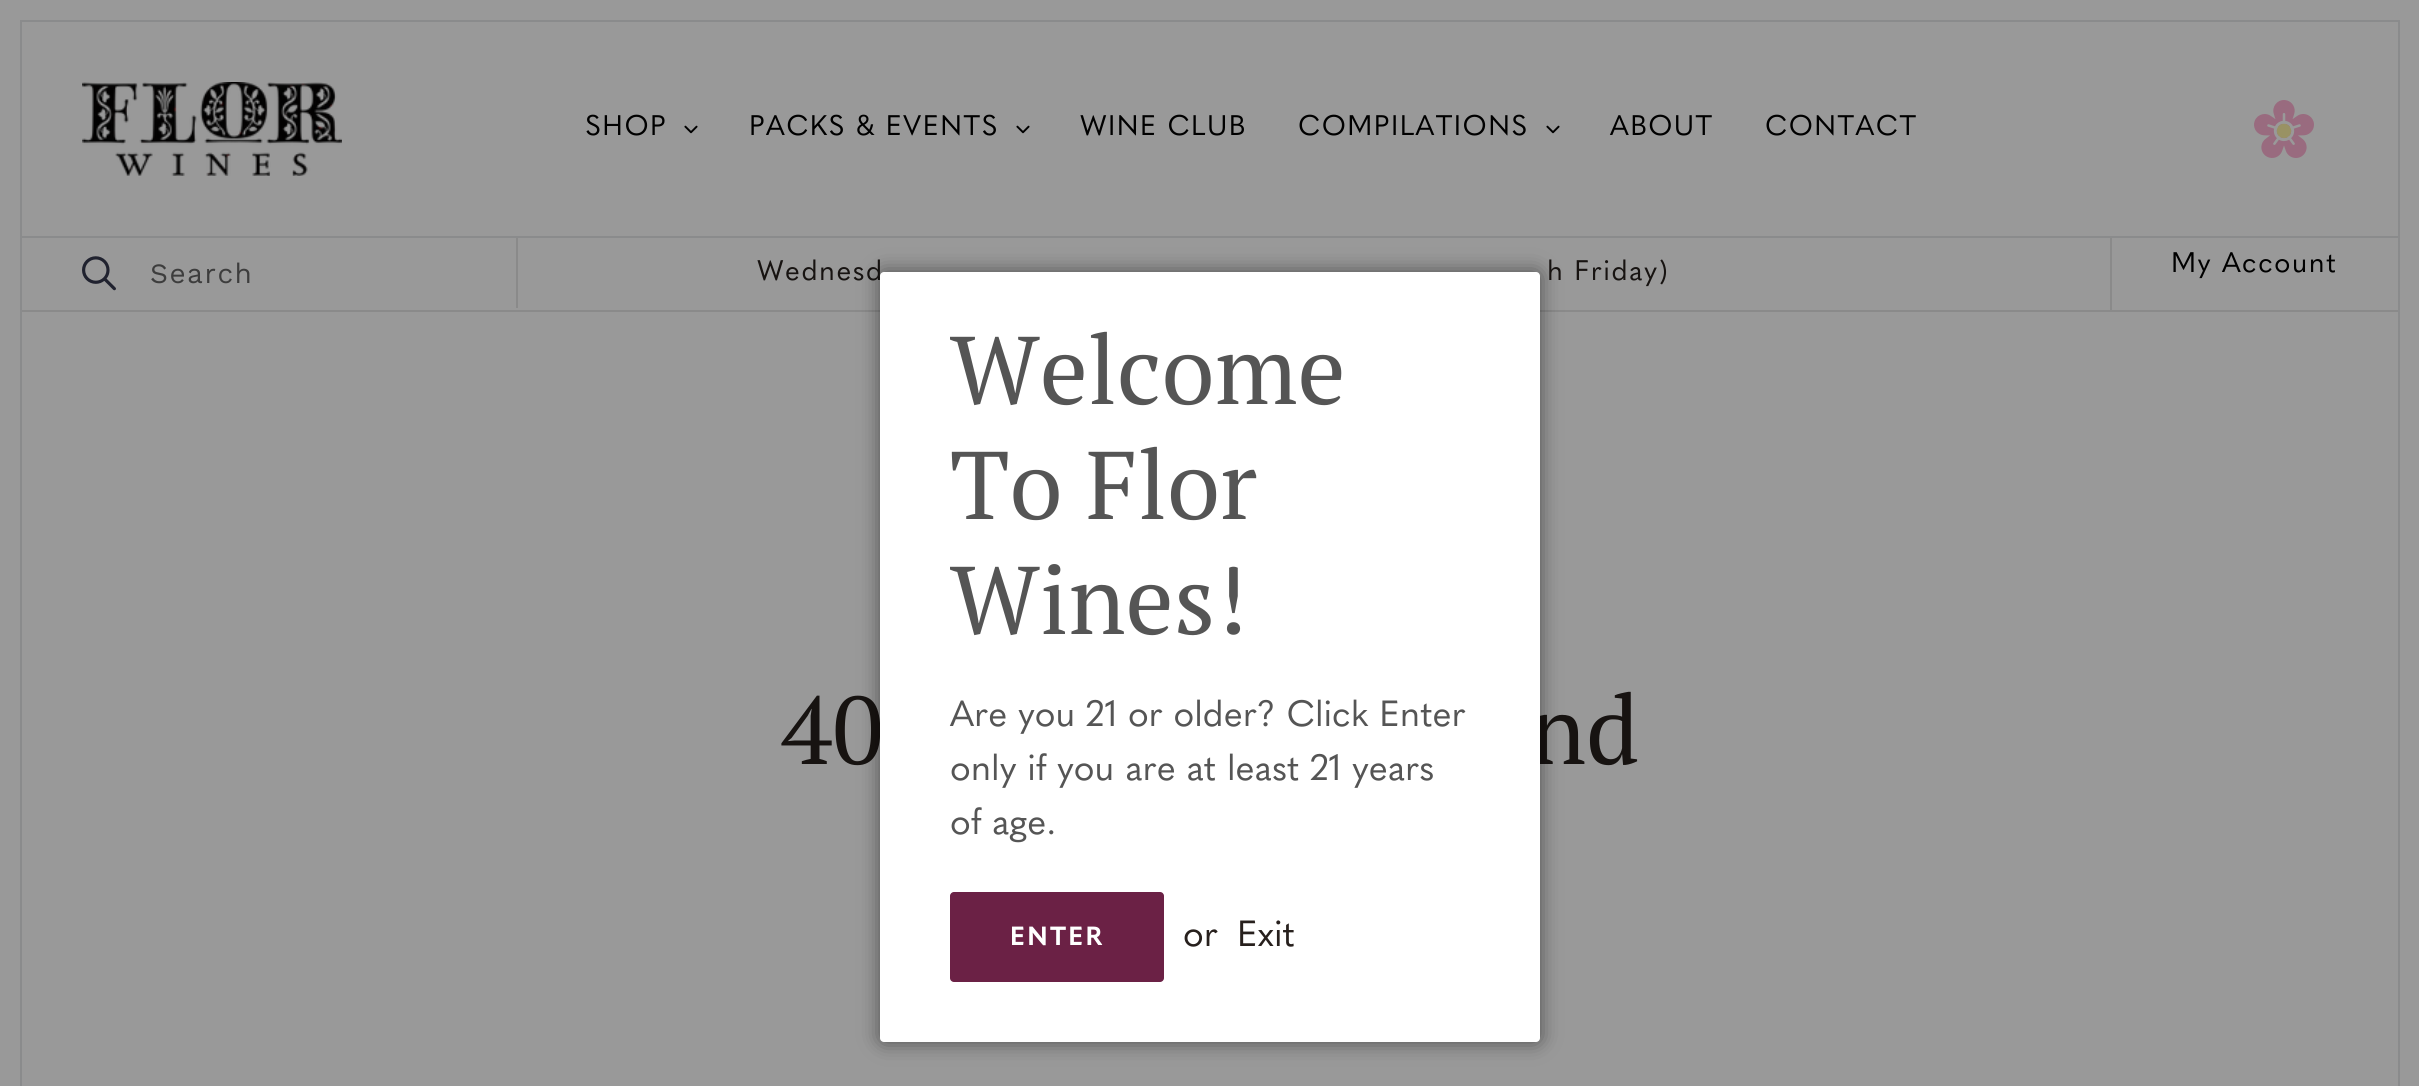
import math
import cairo

surface = cairo.ImageSurface(cairo.Format.RGB24, 2419, 1086)
ctx = cairo.Context(surface)
options = cairo.FontOptions()
options.set_hint_metrics(cairo.HintMetrics.OFF)
options.set_hint_style(cairo.HintStyle.NONE)
ctx.set_font_options(options)
ctx.set_miter_limit(4)


def ink(r, g, b):
    ctx.set_source_rgb(r / 255, g / 255, b / 255)


def write(x, y, s, family, size, color, bold=False, italic=False):
    ctx.select_font_face(family, cairo.FontSlant.ITALIC if italic else cairo.FontSlant.NORMAL, cairo.FontWeight.BOLD if bold else cairo.FontWeight.NORMAL)
    ctx.set_font_size(size)
    ink(*color)
    ctx.move_to(x, y)
    ctx.show_text(s)


def write_spaced(x, y, s, letter, word):
    ctx.move_to(x, y)
    for ch in s:
        ctx.show_text(ch)
        ctx.rel_move_to(letter + word * (ch == ' '), 0)


def block(x, y, w, h, *color):
    ink(*color)
    ctx.rectangle(x, y, w, h)
    ctx.fill()


def round_path(x, y, w, h, r):
    ctx.new_sub_path()
    for i, (u, v) in enumerate([(x + w - r, y + h - r), (x + r, y + h - r), (x + r, y + r), (x + w - r, y + r)]):
        ctx.arc(u, v, r, i * math.pi / 2, (i + 1) * math.pi / 2)
    ctx.close_path()


def blur_box(x, y, w, h, r, blur, alpha):
    ctx.push_group_with_content(cairo.Content.ALPHA)
    ctx.set_operator(cairo.Operator.SOURCE)
    for i in range(15, -16, -2):
        e = blur * i / 6
        if min(w, h) + 2 * e > 0:
            ctx.set_source_rgba(0, 0, 0, alpha * math.erfc((i - 1) / 8.5) / 2)
            round_path(x - e, y - e, w + 2 * e, h + 2 * e, max(0, min(r + e + blur * .6, min(w, h) / 2 + e)))
            ctx.fill()
    ctx.mask(ctx.pop_group())


def paste(path, x, y, w, h):
    ctx.save()
    ctx.set_source_surface(cairo.ImageSurface.create_from_png(path), x, y)
    ctx.rectangle(x, y, w, h)
    ctx.fill()
    ctx.restore()


s1 = dict(family="PT Serif", size=96, color=(23, 19, 17))
s2 = dict(family="PT Serif", size=96, color=(85, 85, 85))
s3 = dict(family="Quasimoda", size=36, color=(85, 85, 85))
s4 = dict(family="Quasimoda", size=36, color=(39, 32, 29))

ink(153, 153, 153)
ctx.paint()
ctx.rectangle(21, 21, 2378, 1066)
ink(138, 139, 140)
ctx.stroke()
block(22, 236, 2376, 2, 138, 139, 140)
paste("pic1.png", 82, 82, 260, 94)
ctx.select_font_face("Quasimoda")
ctx.set_font_size(28)
ink(0, 0, 0)
write_spaced(585, 135, "SHOP", 1.5, 0)
paste("pic2.png", 684, 125, 14, 9)
write_spaced(749, 135, "PACKS & EVENTS", 1.5, 0)
paste("pic2.png", 1016, 125, 14, 9)
write_spaced(1080, 135, "WINE CLUB", 1.5, 0)
write_spaced(1298, 135, "COMPILATIONS", 1.5, 0)
paste("pic2.png", 1546, 125, 14, 9)
write_spaced(1610, 135, "ABOUT", 1.5, 0)
write_spaced(1765, 135, "CONTACT", 1.5, 0)
paste("pic3.png", 2254, 100, 60, 58)
block(22, 310, 2376, 2, 138, 138, 138)
paste("pic4.png", 82, 256, 34, 35)
block(516, 238, 2, 70, 138, 138, 138)
ctx.select_font_face("Work Sans")
ink(61, 61, 61)
write_spaced(150, 283, "Search", 1.5, 0)
ctx.select_font_face("Quasimoda")
ink(23, 19, 17)
write_spaced(757, 280, "Wednesd", 1.5, 0)
write_spaced(1547, 280, "h Friday)", 1.5, 0)
block(2110, 238, 2, 72, 138, 138, 138)
ink(0, 0, 0)
write_spaced(2171, 272, "My Account", 1.5, 0)
write(781, 764, "40", **s1)
write(1529, 764, "nd", **s1)
ink(0, 0, 0)
blur_box(880, 272, 660, 770, 4, 10, 0.5)
ink(255, 255, 255)
round_path(880, 272, 660, 770, 4)
ctx.fill()
write(950, 404, "Welcome", **s2)
write(950, 519, "To Flor", **s2)
write(950, 634, "Wines!", **s2)
write(950, 726, "Are you 21 or older? Click Enter", **s3)
write(950, 780, "only if you are at least 21 years", **s3)
write(950, 834, "of age.", **s3)
ink(107, 33, 69)
round_path(950, 892, 214, 90, 4)
ctx.fill()
ctx.select_font_face("Quasimoda", cairo.FontSlant.NORMAL, cairo.FontWeight.BOLD)
ctx.set_font_size(26)
ink(255, 255, 255)
write_spaced(1010, 945, "ENTER", 2.25, 0)
write(1183, 946, "or", **s4)
write(1237, 946, "Exit", **s4)
surface.write_to_png("screenshot.png")
